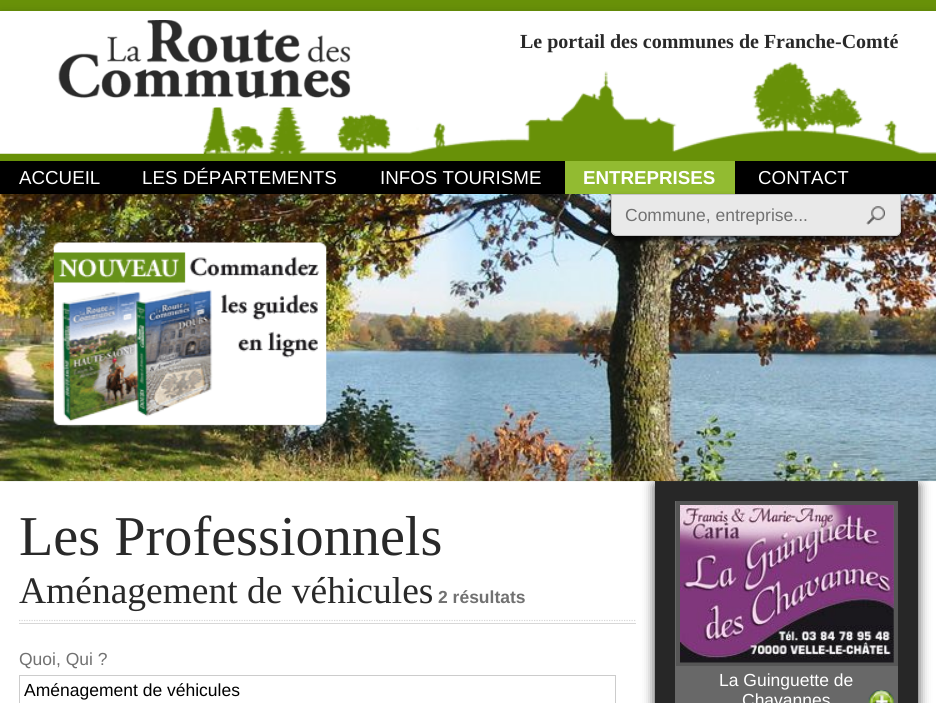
import math
import cairo

surface = cairo.ImageSurface(cairo.Format.RGB24, 936, 703)
ctx = cairo.Context(surface)
options = cairo.FontOptions()
options.set_hint_metrics(cairo.HintMetrics.OFF)
options.set_hint_style(cairo.HintStyle.NONE)
ctx.set_font_options(options)
ctx.set_miter_limit(4)


def ink(r, g, b):
    ctx.set_source_rgb(r / 255, g / 255, b / 255)


def write(x, y, s, family, size, color, bold=False, italic=False):
    ctx.select_font_face(family, cairo.FontSlant.ITALIC if italic else cairo.FontSlant.NORMAL, cairo.FontWeight.BOLD if bold else cairo.FontWeight.NORMAL)
    ctx.set_font_size(size)
    ink(*color)
    ctx.move_to(x, y)
    ctx.show_text(s)


def block(x, y, w, h, *color):
    ink(*color)
    ctx.rectangle(x, y, w, h)
    ctx.fill()


def round_path(x, y, w, h, r):
    ctx.new_sub_path()
    for i, (u, v) in enumerate([(x + w - r, y + h - r), (x + r, y + h - r), (x + r, y + r), (x + w - r, y + r)]):
        ctx.arc(u, v, r, i * math.pi / 2, (i + 1) * math.pi / 2)
    ctx.close_path()


def blur_box(x, y, w, h, r, blur, alpha):
    ctx.push_group_with_content(cairo.Content.ALPHA)
    ctx.set_operator(cairo.Operator.SOURCE)
    for i in range(15, -16, -2):
        e = blur * i / 6
        if min(w, h) + 2 * e > 0:
            ctx.set_source_rgba(0, 0, 0, alpha * math.erfc((i - 1) / 8.5) / 2)
            round_path(x - e, y - e, w + 2 * e, h + 2 * e, max(0, min(r + e + blur * .6, min(w, h) / 2 + e)))
            ctx.fill()
    ctx.mask(ctx.pop_group())


def paste(path, x, y, w, h):
    ctx.save()
    ctx.set_source_surface(cairo.ImageSurface.create_from_png(path), x, y)
    ctx.rectangle(x, y, w, h)
    ctx.fill()
    ctx.restore()


s1 = dict(family="Liberation Serif", size=20, color=(41, 41, 41), bold=True)
s2 = dict(family="Liberation Sans", size=18.75, color=(255, 255, 255))
s3 = dict(family="Liberation Sans", size=18.75, color=(255, 255, 255), bold=True)
s4 = dict(family="Liberation Sans", size=17.5, color=(113, 113, 113))
s5 = dict(family="Liberation Serif", size=56.25, color=(41, 41, 41))
s6 = dict(family="Liberation Serif", size=37.5, color=(41, 41, 41))
s7 = dict(family="Liberation Sans", size=17.5, color=(113, 113, 113), bold=True)
s8 = dict(family="Liberation Sans", size=17.5, color=(0, 0, 0))
s9 = dict(family="Liberation Sans", size=17.5, color=(255, 255, 255))

ink(104, 145, 8)
ctx.paint()
ink(0, 0, 0)
blur_box(0, 18, 936, 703, 0, 6, 0.6)
block(0, 11, 936, 692, 255, 255, 255)
paste("pic1.png", 0, 62, 936, 99)
paste("pic2.png", 58, 20, 293, 88)
write(520, 48, "Le portail des communes de Franche-Comté", **s1)
block(0, 161, 936, 33, 0, 0, 0)
write(19, 184, "ACCUEIL", **s2)
write(142, 184, "LES DÉPARTEMENTS", **s2)
write(380, 184, "INFOS TOURISME", **s2)
block(565, 161, 170, 33, 146, 187, 49)
write(583, 184, "ENTREPRISES", **s3)
write(758, 184, "CONTACT", **s2)
ink(0, 0, 0)
blur_box(655, 485, 263, 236, 0, 6, 0.75)
block(655, 481, 263, 222, 39, 39, 39)
paste("pic4.png", 0, 194, 936, 288)
ink(0, 0, 0)
blur_box(611, 198, 290, 42, 6, 3, 0.75)
ink(233, 233, 233)
ctx.new_path()
ctx.move_to(611, 194)
ctx.line_to(851, 194)
ctx.line_to(851, 236)
ctx.line_to(617, 236)
ctx.curve_to(613.5, 236, 611, 233.5, 611, 230)
ctx.close_path()
ctx.fill()
ink(198, 198, 198)
ctx.set_fill_rule(cairo.FillRule.EVEN_ODD)
ctx.new_path()
ctx.move_to(611, 194)
ctx.line_to(851, 194)
ctx.line_to(851, 236)
ctx.line_to(618, 236)
ctx.curve_to(614, 236, 611, 233, 611, 230)
ctx.close_path()
ctx.move_to(612, 195)
ctx.line_to(851, 195)
ctx.line_to(851, 235)
ctx.line_to(618, 235)
ctx.curve_to(615, 235, 612, 233, 612, 230)
ctx.close_path()
ctx.fill()
write(625, 221, "Commune, entreprise...", **s4)
ink(233, 233, 233)
ctx.new_path()
ctx.move_to(851, 194)
ctx.line_to(901, 194)
ctx.line_to(901, 230)
ctx.curve_to(901, 233.5, 898.5, 236, 895, 236)
ctx.line_to(851, 236)
ctx.close_path()
ctx.fill()
paste("pic3.png", 866, 206, 19, 19)
ink(198, 198, 198)
ctx.new_path()
ctx.move_to(851, 194)
ctx.line_to(901, 194)
ctx.line_to(901, 230)
ctx.curve_to(901, 233, 898, 236, 895, 236)
ctx.line_to(851, 236)
ctx.close_path()
ctx.move_to(851, 195)
ctx.line_to(900, 195)
ctx.line_to(900, 230)
ctx.curve_to(900, 233, 898, 235, 895, 235)
ctx.line_to(851, 235)
ctx.close_path()
ctx.fill()
paste("pic5.png", 53, 242, 274, 186)
write(19, 555, "Les Professionnels", **s5)
write(19, 603, "Aménagement de véhicules", **s6)
write(438, 603, "2 résultats", **s7)
ctx.new_path()
ctx.move_to(19, 620.5)
ctx.line_to(636, 620.5)
ink(215, 215, 215)
ctx.set_line_width(1.2)
ctx.set_dash([1.25, 1.25])
ctx.stroke()
block(19, 623, 617, 1, 215, 215, 215)
write(19, 665, "Quoi, Qui ?", **s4)
ctx.rectangle(19.5, 675.5, 596, 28)
ink(204, 204, 204)
ctx.set_line_width(1)
ctx.set_dash([])
ctx.stroke()
write(24, 696, "Aménagement de véhicules", **s8)
block(675, 501, 223, 202, 104, 104, 104)
ctx.rectangle(678, 503, 218, 161)
ink(86, 86, 86)
ctx.set_line_width(4)
ctx.stroke()
paste("pic6.png", 680, 505, 214, 158)
write(719, 686, "La Guinguette de", **s9)
write(742, 706, "Chavannes", **s9)
paste("pic7.png", 868, 690, 26, 13)
surface.write_to_png("screenshot.png")
